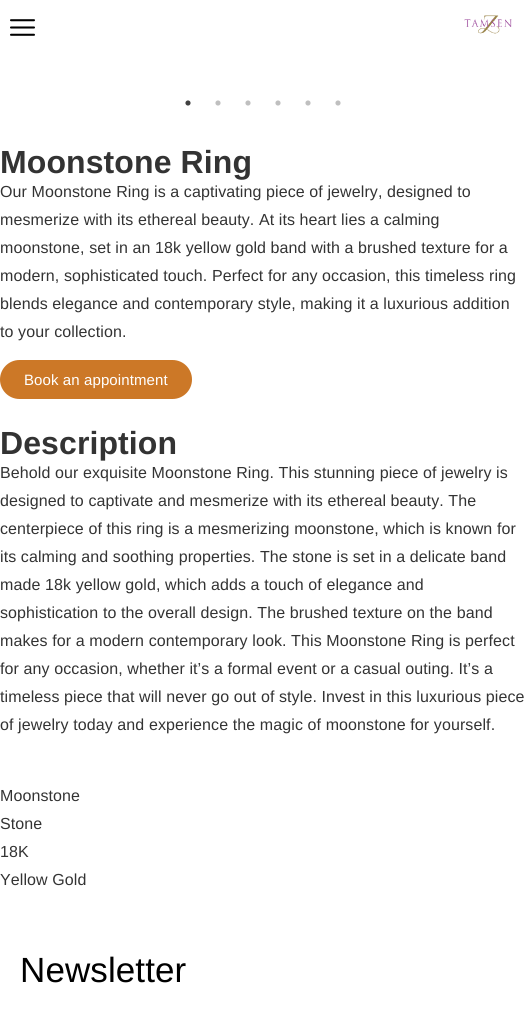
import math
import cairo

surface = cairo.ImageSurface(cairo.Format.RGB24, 525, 1017)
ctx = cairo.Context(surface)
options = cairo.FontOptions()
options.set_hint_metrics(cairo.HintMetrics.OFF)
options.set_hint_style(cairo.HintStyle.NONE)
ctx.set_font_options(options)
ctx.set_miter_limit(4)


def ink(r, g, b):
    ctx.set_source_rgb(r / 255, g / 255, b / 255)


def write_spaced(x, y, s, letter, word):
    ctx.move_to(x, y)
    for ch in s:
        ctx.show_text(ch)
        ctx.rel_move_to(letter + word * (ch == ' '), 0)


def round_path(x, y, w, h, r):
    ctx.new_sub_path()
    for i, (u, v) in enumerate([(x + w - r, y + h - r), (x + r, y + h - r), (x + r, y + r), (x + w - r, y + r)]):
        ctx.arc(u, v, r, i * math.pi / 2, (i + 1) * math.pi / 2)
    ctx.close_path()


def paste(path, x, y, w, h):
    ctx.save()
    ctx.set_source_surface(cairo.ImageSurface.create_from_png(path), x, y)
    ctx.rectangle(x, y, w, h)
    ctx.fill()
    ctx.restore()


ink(255, 255, 255)
ctx.paint()
paste("pic1.png", 10, 19, 25, 17)
paste("pic2.png", 464, 15, 48, 19)
paste("pic3.png", 185, 100, 6, 6)
paste("pic4.png", 215, 100, 6, 6)
paste("pic4.png", 245, 100, 6, 6)
paste("pic4.png", 275, 100, 6, 6)
paste("pic4.png", 305, 100, 6, 6)
paste("pic4.png", 335, 100, 6, 6)
ctx.select_font_face("Liberation Sans", cairo.FontSlant.NORMAL, cairo.FontWeight.BOLD)
ctx.set_font_size(32)
ink(51, 51, 51)
write_spaced(0, 173, "Moonstone Ring", 0.1, 0)
ctx.select_font_face("Liberation Sans")
ctx.set_font_size(16)
write_spaced(0, 197, "Our Moonstone Ring is a captivating piece of jewelry, designed to", 0.1, 0)
write_spaced(0, 225, "mesmerize with its ethereal beauty. At its heart lies a calming", 0.1, 0)
write_spaced(0, 253, "moonstone, set in an 18k yellow gold band with a brushed texture for a", 0.1, 0)
write_spaced(0, 281, "modern, sophisticated touch. Perfect for any occasion, this timeless ring", 0.1, 0)
write_spaced(0, 309, "blends elegance and contemporary style, making it a luxurious addition", 0.1, 0)
write_spaced(0, 337, "to your collection.", 0.1, 0)
ink(204, 120, 39)
round_path(0, 360, 192, 39, 19.5)
ctx.fill()
ctx.set_font_size(15)
ink(255, 255, 255)
write_spaced(24, 385, "Book an appointment", 0.1, 0)
ctx.select_font_face("Liberation Sans", cairo.FontSlant.NORMAL, cairo.FontWeight.BOLD)
ctx.set_font_size(32)
ink(51, 51, 51)
write_spaced(0, 454, "Description", 0.1, 0)
ctx.select_font_face("Liberation Sans")
ctx.set_font_size(16)
write_spaced(0, 478, "Behold our exquisite Moonstone Ring. This stunning piece of jewelry is", 0.1, 0)
write_spaced(0, 506, "designed to captivate and mesmerize with its ethereal beauty. The", 0.1, 0)
write_spaced(0, 534, "centerpiece of this ring is a mesmerizing moonstone, which is known for", 0.1, 0)
write_spaced(0, 562, "its calming and soothing properties. The stone is set in a delicate band", 0.1, 0)
write_spaced(0, 590, "made 18k yellow gold, which adds a touch of elegance and", 0.1, 0)
write_spaced(0, 618, "sophistication to the overall design. The brushed texture on the band", 0.1, 0)
write_spaced(0, 646, "makes for a modern contemporary look. This Moonstone Ring is perfect", 0.1, 0)
write_spaced(0, 674, "for any occasion, whether it’s a formal event or a casual outing. It’s a", 0.1, 0)
write_spaced(0, 702, "timeless piece that will never go out of style. Invest in this luxurious piece", 0.1, 0)
write_spaced(0, 730, "of jewelry today and experience the magic of moonstone for yourself.", 0.1, 0)
write_spaced(0, 801, "Moonstone", 0.1, 0)
write_spaced(0, 829, "Stone", 0.1, 0)
write_spaced(0, 857, "18K", 0.1, 0)
write_spaced(0, 885, "Yellow Gold", 0.1, 0)
ctx.set_font_size(35)
ink(0, 0, 0)
write_spaced(20, 982, "Newsletter", 0.1, 0)
surface.write_to_png("screenshot.png")
